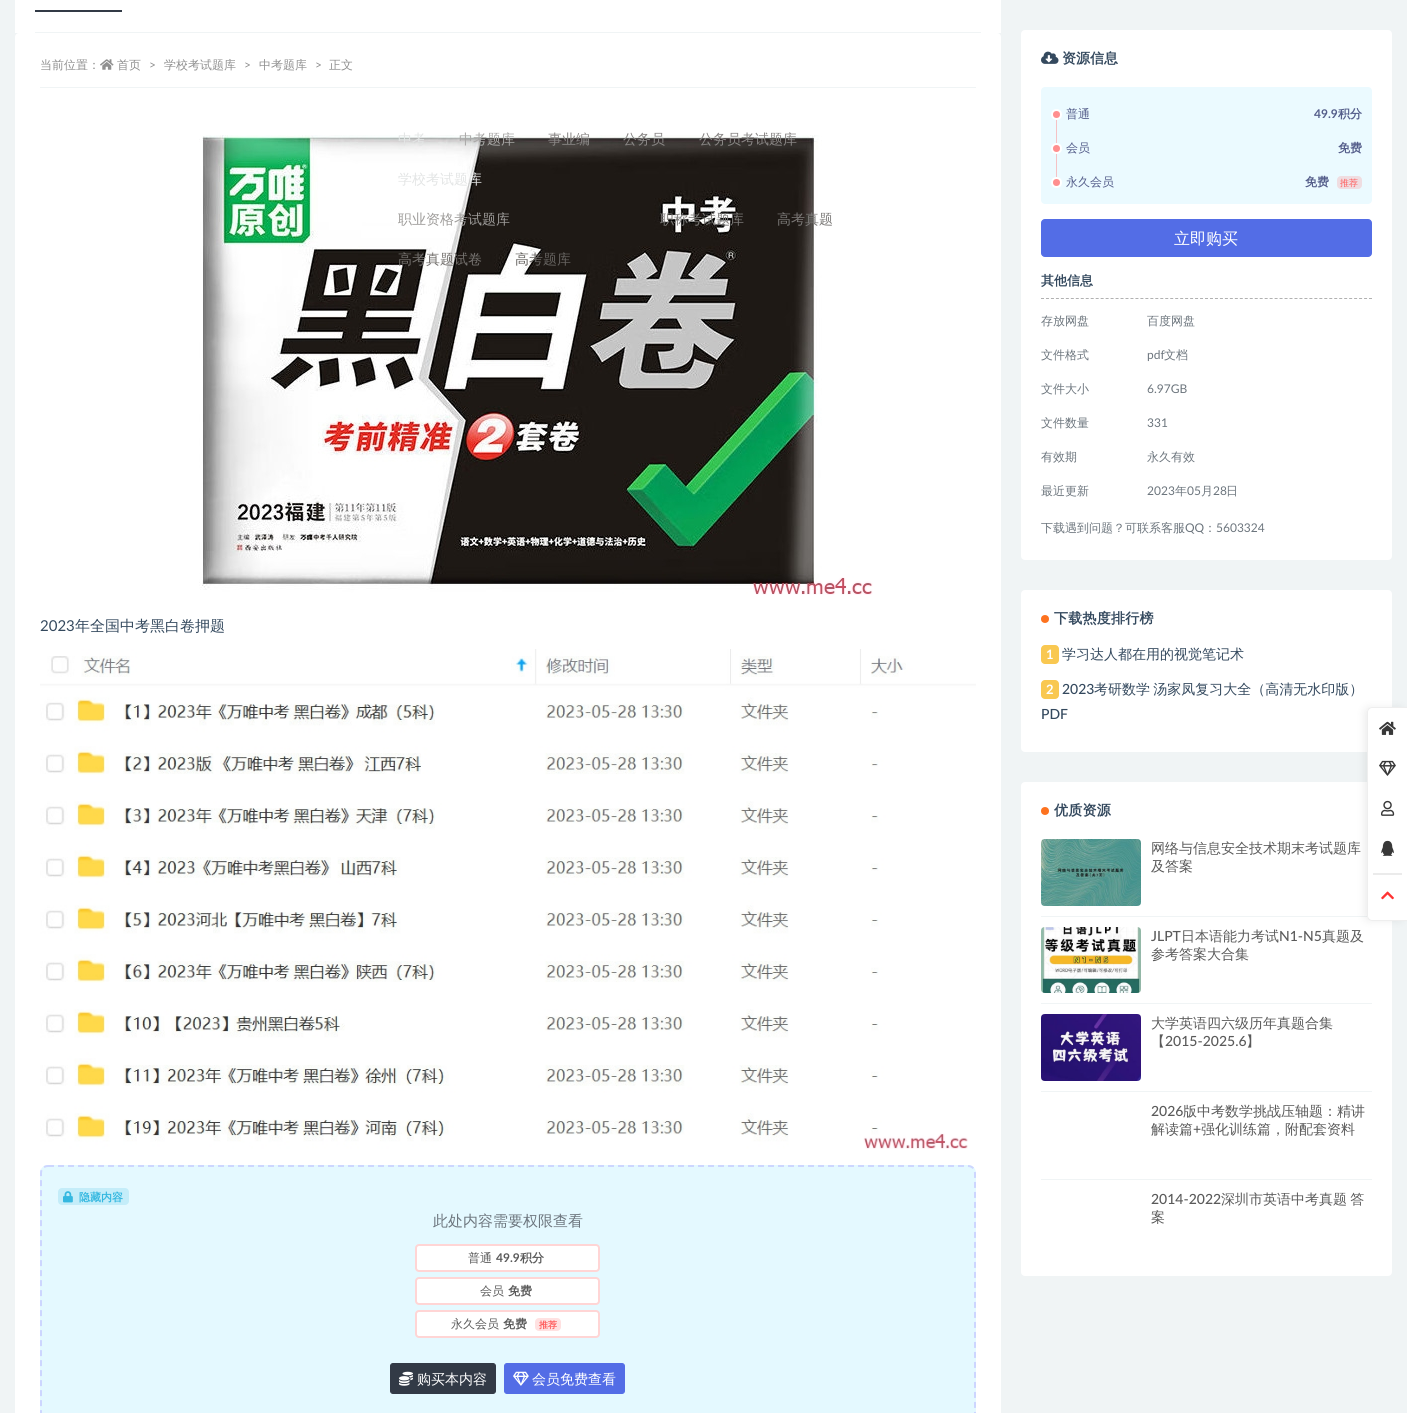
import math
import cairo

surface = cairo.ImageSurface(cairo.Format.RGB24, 1407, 1413)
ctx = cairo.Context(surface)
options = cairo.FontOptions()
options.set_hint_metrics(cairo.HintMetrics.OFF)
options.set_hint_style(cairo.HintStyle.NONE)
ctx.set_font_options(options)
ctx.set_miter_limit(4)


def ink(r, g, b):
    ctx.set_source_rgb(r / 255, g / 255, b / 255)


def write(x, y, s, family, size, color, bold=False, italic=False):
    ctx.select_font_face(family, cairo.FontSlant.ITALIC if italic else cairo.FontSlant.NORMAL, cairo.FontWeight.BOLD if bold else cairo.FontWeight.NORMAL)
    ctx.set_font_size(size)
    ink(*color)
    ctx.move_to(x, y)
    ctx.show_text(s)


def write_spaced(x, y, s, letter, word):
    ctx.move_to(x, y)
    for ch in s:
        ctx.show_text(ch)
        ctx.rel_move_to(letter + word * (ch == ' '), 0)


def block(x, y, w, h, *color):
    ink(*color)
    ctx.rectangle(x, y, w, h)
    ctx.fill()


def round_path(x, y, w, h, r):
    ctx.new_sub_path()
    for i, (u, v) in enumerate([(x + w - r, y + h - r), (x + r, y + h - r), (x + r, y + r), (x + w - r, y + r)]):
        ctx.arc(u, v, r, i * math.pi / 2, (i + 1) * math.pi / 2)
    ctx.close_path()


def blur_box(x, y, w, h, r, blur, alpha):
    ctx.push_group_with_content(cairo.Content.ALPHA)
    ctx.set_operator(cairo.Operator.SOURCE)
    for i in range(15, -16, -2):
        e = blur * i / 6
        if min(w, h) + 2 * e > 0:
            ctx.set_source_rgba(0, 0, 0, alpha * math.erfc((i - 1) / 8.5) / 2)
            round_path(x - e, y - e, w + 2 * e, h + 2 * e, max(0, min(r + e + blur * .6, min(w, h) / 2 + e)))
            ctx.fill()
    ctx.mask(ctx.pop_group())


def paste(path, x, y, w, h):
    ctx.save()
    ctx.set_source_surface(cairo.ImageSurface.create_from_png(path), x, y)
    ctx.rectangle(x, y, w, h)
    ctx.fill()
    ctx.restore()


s1 = dict(family="WenQuanYi Zen Hei Medium", size=12, color=(143, 143, 143))
s2 = dict(family="Lato", size=12, color=(143, 143, 143))
s3 = dict(family="Lato", size=15, color=(52, 73, 94))
s4 = dict(family="WenQuanYi Zen Hei Medium", size=15, color=(52, 73, 94))
s5 = dict(family="WenQuanYi Zen Hei", size=11, color=(53, 184, 224), bold=True)
s6 = dict(family="WenQuanYi Zen Hei Medium", size=15, color=(108, 117, 125))
s7 = dict(family="WenQuanYi Zen Hei Medium", size=12, color=(90, 90, 90))
s8 = dict(family="Lato", size=12, color=(90, 90, 90), bold=True)
s9 = dict(family="WenQuanYi Zen Hei", size=12, color=(90, 90, 90), bold=True)
s10 = dict(family="WenQuanYi Zen Hei", size=9, color=(255, 91, 91), bold=True)
s11 = dict(family="WenQuanYi Zen Hei Medium", size=14, color=(255, 255, 255))
s12 = dict(family="WenQuanYi Zen Hei", size=14, color=(52, 73, 94), bold=True)
s13 = dict(family="WenQuanYi Zen Hei Medium", size=12, color=(84, 93, 138))
s14 = dict(family="Lato", size=12, color=(84, 93, 138), bold=True)
s15 = dict(family="WenQuanYi Zen Hei", size=12, color=(84, 93, 138), bold=True)
s16 = dict(family="WenQuanYi Zen Hei Medium", size=9, color=(255, 91, 91))
s17 = dict(family="WenQuanYi Zen Hei Medium", size=16, color=(255, 255, 255))
s18 = dict(family="WenQuanYi Zen Hei", size=13, color=(52, 73, 94), bold=True)
s19 = dict(family="WenQuanYi Zen Hei Medium", size=12, color=(108, 117, 125))
s20 = dict(family="Lato", size=12, color=(108, 117, 125))
s21 = dict(family="Lato", size=13, color=(255, 255, 255), bold=True)
s22 = dict(family="WenQuanYi Zen Hei Medium", size=14, color=(52, 73, 94))
s23 = dict(family="Lato Medium", size=14, color=(52, 73, 94))
s24 = dict(family="WenQuanYi Zen Hei Medium", size=14, color=(90, 90, 90))
s25 = dict(family="Lato Medium", size=14, color=(90, 90, 90))
s26 = dict(family="WenQuanYi Zen Hei Medium", size=14, color=(227, 229, 229))
s27 = dict(family="WenQuanYi Zen Hei Medium", size=14, color=(169, 168, 167))
s28 = dict(family="WenQuanYi Zen Hei Medium", size=14, color=(137, 134, 133))
s29 = dict(family="WenQuanYi Zen Hei Medium", size=14, color=(158, 156, 154))
s30 = dict(family="WenQuanYi Zen Hei Medium", size=14, color=(123, 121, 119))
s31 = dict(family="WenQuanYi Zen Hei Medium", size=14, color=(116, 113, 110))
s32 = dict(family="WenQuanYi Zen Hei Medium", size=14, color=(101, 98, 95))

ink(240, 244, 245)
ctx.paint()
block(15, 0, 986, 33, 255, 255, 255)
block(35, 32, 946, 1, 240, 244, 245)
block(35, 10, 87, 2, 50, 58, 70)
ink(255, 255, 255)
round_path(15, 33, 986, 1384, 4)
ctx.fill()
block(40, 87, 936, 1, 240, 244, 245)
write(40, 69, "当前位置：", **s1)
paste("pic1.png", 100, 59, 14, 11)
write(117, 69, "首页", **s1)
write(149, 69, ">", **s2)
write(164, 69, "学校考试题库", **s1)
write(244, 69, ">", **s2)
write(259, 69, "中考题库", **s1)
write(315, 69, ">", **s2)
write(329, 69, "正文", **s1)
paste("pic2.png", 199, 135, 674, 460)
write(40, 631, "2023", **s3)
write(75, 631, "年全国中考黑白卷押题", **s4)
paste("pic3.png", 40, 649, 936, 500)
ink(228, 249, 255)
round_path(40, 1165, 936, 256, 8)
ctx.fill()
ctx.new_path()
ctx.move_to(48, 1166)
ctx.line_to(968, 1166)
ctx.curve_to(972, 1166, 975, 1169, 975, 1173)
ctx.line_to(975, 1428)
ctx.curve_to(975, 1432, 972, 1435, 968, 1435)
ctx.line_to(48, 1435)
ctx.curve_to(44, 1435, 41, 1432, 41, 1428)
ctx.line_to(41, 1173)
ctx.curve_to(41, 1169, 44, 1166, 48, 1166)
ctx.close_path()
ink(205, 214, 255)
ctx.set_dash([6, 4])
ctx.stroke()
ink(196, 237, 249)
round_path(58, 1188, 71, 17, 4)
ctx.fill()
paste("pic4.png", 63, 1191, 10, 12)
write(79, 1201, "隐藏内容", **s5)
write(433, 1226, "此处内容需要权限查看", **s6)
ink(255, 255, 255)
round_path(416, 1245, 183, 26, 3)
ctx.fill_preserve()
ink(255, 213, 213)
ctx.set_dash([])
ctx.stroke()
write(468, 1262, "普通", **s7)
write(496, 1262, "49.9", **s8)
write(520, 1262, "积分", **s9)
ink(255, 255, 255)
round_path(416, 1278, 183, 26, 3)
ctx.fill_preserve()
ink(255, 213, 213)
ctx.stroke()
write(480, 1295, "会员", **s7)
write(508, 1295, "免费", **s9)
ink(255, 255, 255)
round_path(416, 1311, 183, 26, 3)
ctx.fill_preserve()
ink(255, 213, 213)
ctx.stroke()
write(451, 1328, "永久会员", **s7)
write(503, 1328, "免费", **s9)
ink(255, 225, 225)
round_path(535, 1318, 26, 13, 4)
ctx.fill()
write(539, 1328, "推荐", **s10)
ink(50, 58, 70)
round_path(390.5, 1363.5, 105, 30, 2.5)
ctx.fill_preserve()
ctx.set_line_width(1)
ctx.stroke()
paste("pic5.png", 399, 1371, 14, 15)
write(417, 1384, "购买本内容", **s11)
ink(83, 109, 230)
round_path(504.5, 1363.5, 120, 30, 2.5)
ctx.fill_preserve()
ctx.stroke()
paste("pic6.png", 513, 1371, 16, 15)
write(532, 1384, "会员免费查看", **s11)
round_path(1021, 30, 371, 530, 4)
ctx.fill()
paste("pic7.png", 1041, 51, 18, 13)
write(1062, 63, "资源信息", **s12)
ink(235, 250, 255)
round_path(1041, 87, 331, 117, 4)
ctx.fill()
block(1056, 109, 1, 68, 245, 194, 197)
ink(255, 143, 143)
ctx.arc(1056.5, 114.5, 4.5, 0, 2 * math.pi)
ctx.fill_preserve()
ink(255, 255, 255)
ctx.set_line_width(2)
ctx.stroke()
write(1066, 118, "普通", **s13)
write(1314, 118, "49.9", **s14)
write(1338, 118, "积分", **s15)
ink(255, 143, 143)
ctx.new_path()
ctx.arc(1056.5, 148.5, 4.5, 0, 2 * math.pi)
ctx.fill_preserve()
ink(255, 255, 255)
ctx.stroke()
write(1066, 152, "会员", **s13)
write(1338, 152, "免费", **s15)
ink(255, 143, 143)
ctx.new_path()
ctx.arc(1056.5, 182.5, 4.5, 0, 2 * math.pi)
ctx.fill_preserve()
ink(255, 255, 255)
ctx.stroke()
write(1066, 186, "永久会员", **s13)
write(1305, 186, "免费", **s15)
ink(239, 221, 225)
round_path(1337, 176, 25, 13, 4)
ctx.fill()
write(1340, 186, "推荐", **s16)
ink(83, 109, 230)
round_path(1041.5, 219.5, 330, 37, 3.5)
ctx.fill_preserve()
ctx.set_line_width(1)
ctx.stroke()
write(1174, 244, "立即购买", **s17)
ctx.new_path()
ctx.move_to(1041, 298.5)
ctx.line_to(1372, 298.5)
ink(177, 177, 177)
ctx.set_dash([3, 1.97])
ctx.stroke()
write(1041, 285, "其他信息", **s18)
write(1041, 325, "存放网盘", **s19)
write(1147, 325, "百度网盘", **s19)
write(1041, 359, "文件格式", **s19)
write(1147, 359, "pdf", **s20)
write(1164, 359, "文档", **s19)
write(1041, 393, "文件大小", **s19)
write(1147, 393, "6.97GB", **s20)
write(1041, 427, "文件数量", **s19)
write(1147, 427, "331", **s20)
write(1041, 461, "有效期", **s19)
write(1147, 461, "永久有效", **s19)
write(1041, 495, "最近更新", **s19)
write(1147, 495, "2023", **s20)
write(1175, 495, "年", **s19)
write(1187, 495, "05", **s20)
write(1201, 495, "月", **s19)
write(1213, 495, "28", **s20)
write(1226, 495, "日", **s19)
write(1041, 532, "下载遇到问题？可联系客服", **s19)
write(1185, 532, "QQ", **s20)
write(1204, 532, "：", **s19)
write(1216, 532, "5603324", **s20)
ink(255, 255, 255)
round_path(1021, 590, 371, 162, 4)
ctx.fill()
ink(253, 114, 31)
ctx.arc(1045, 619, 4, 0, 2 * math.pi)
ctx.fill()
ctx.select_font_face("WenQuanYi Zen Hei", cairo.FontSlant.NORMAL, cairo.FontWeight.BOLD)
ctx.set_font_size(14)
ink(52, 73, 94)
write_spaced(1054, 623, "下载热度排行榜", 0.25, 0)
ink(249, 200, 81)
round_path(1041, 645, 18, 19, 4)
ctx.fill()
write(1046, 659, "1", **s21)
write(1062, 659, "学习达人都在用的视觉笔记术", **s22)
ink(249, 200, 81)
round_path(1041, 680, 18, 19, 4)
ctx.fill()
write(1046, 694, "2", **s21)
write(1062, 694, "2023", **s23)
ctx.select_font_face("WenQuanYi Zen Hei Medium")
write_spaced(1094, 694, "考研数学 汤家凤复习大全（高清无水印版）", 0, -1)
write(1041, 719, "PDF", **s23)
ink(255, 255, 255)
round_path(1021, 782, 371, 494, 4)
ctx.fill()
ink(253, 114, 31)
ctx.arc(1045, 811, 4, 0, 2 * math.pi)
ctx.fill()
ctx.select_font_face("WenQuanYi Zen Hei", cairo.FontSlant.NORMAL, cairo.FontWeight.BOLD)
ink(52, 73, 94)
write_spaced(1054, 815, "优质资源", 0.25, 0)
block(1041, 916, 331, 1, 240, 244, 245)
paste("pic8.png", 1041, 839, 100, 67)
write(1151, 853, "网络与信息安全技术期末考试题库", **s24)
write(1151, 871, "及答案", **s24)
block(1041, 1003, 331, 1, 240, 244, 245)
paste("pic9.png", 1041, 927, 100, 66)
write(1151, 941, "JLPT", **s25)
write(1181, 941, "日本语能力考试", **s24)
write(1279, 941, "N1-N5", **s25)
write(1322, 941, "真题及", **s24)
write(1151, 959, "参考答案大合集", **s24)
block(1041, 1091, 331, 1, 240, 244, 245)
paste("pic10.png", 1041, 1014, 100, 67)
write(1151, 1028, "大学英语四六级历年真题合集", **s24)
write(1151, 1046, "【", **s24)
write(1165, 1046, "2015-2025.6", **s25)
write(1246, 1046, "】", **s24)
block(1041, 1179, 331, 1, 240, 244, 245)
write(1151, 1116, "2026", **s25)
write(1183, 1116, "版中考数学挑战压轴题：精讲", **s24)
write(1151, 1134, "解读篇", **s24)
write(1193, 1134, "+", **s25)
write(1201, 1134, "强化训练篇，附配套资料", **s24)
write(1151, 1204, "2014-2022", **s25)
ctx.select_font_face("WenQuanYi Zen Hei Medium")
write_spaced(1221, 1204, "深圳市英语中考真题 答", 0, -1)
write(1151, 1222, "案", **s24)
write(398, 144, "中考", **s26)
write(459, 144, "中考题库", **s27)
write(548, 144, "事业编", **s28)
write(623, 144, "公务员", **s28)
write(699, 144, "公务员考试题库", **s28)
write(398, 184, "学校考试题库", **s26)
write(398, 224, "职业资格考试题库", **s29)
write(660, 224, "职称考试题库", **s30)
write(777, 224, "高考真题", **s30)
write(398, 264, "高考真题试卷", **s31)
write(515, 264, "高考题库", **s32)
ink(0, 0, 0)
blur_box(1366, 709, 36, 210, 3, 5, 0.1)
ink(255, 255, 255)
ctx.new_path()
ctx.move_to(1372, 707)
ctx.line_to(1407, 707)
ctx.line_to(1407, 921)
ctx.line_to(1372, 921)
ctx.curve_to(1369, 921, 1367, 919, 1367, 916)
ctx.line_to(1367, 712)
ctx.curve_to(1367, 709, 1369, 707, 1372, 707)
ctx.close_path()
ctx.fill()
ink(238, 238, 238)
ctx.set_fill_rule(cairo.FillRule.EVEN_ODD)
ctx.new_path()
ctx.move_to(1372, 707)
ctx.line_to(1407, 707)
ctx.line_to(1407, 921)
ctx.line_to(1372, 921)
ctx.curve_to(1369, 921, 1367, 919, 1367, 916)
ctx.line_to(1367, 712)
ctx.curve_to(1367, 709, 1369, 707, 1372, 707)
ctx.close_path()
ctx.move_to(1372, 708)
ctx.line_to(1407, 708)
ctx.line_to(1407, 920)
ctx.line_to(1372, 920)
ctx.curve_to(1370, 920, 1368, 918, 1368, 916)
ctx.line_to(1368, 712)
ctx.curve_to(1368, 710, 1370, 708, 1372, 708)
ctx.close_path()
ctx.fill()
paste("pic11.png", 1379, 721, 17, 14)
paste("pic12.png", 1379, 760, 17, 16)
paste("pic13.png", 1381, 800, 14, 16)
paste("pic14.png", 1381, 840, 13, 16)
block(1373, 873, 29, 2, 235, 235, 235)
paste("pic15.png", 1381, 891, 13, 9)
surface.write_to_png("screenshot.png")
